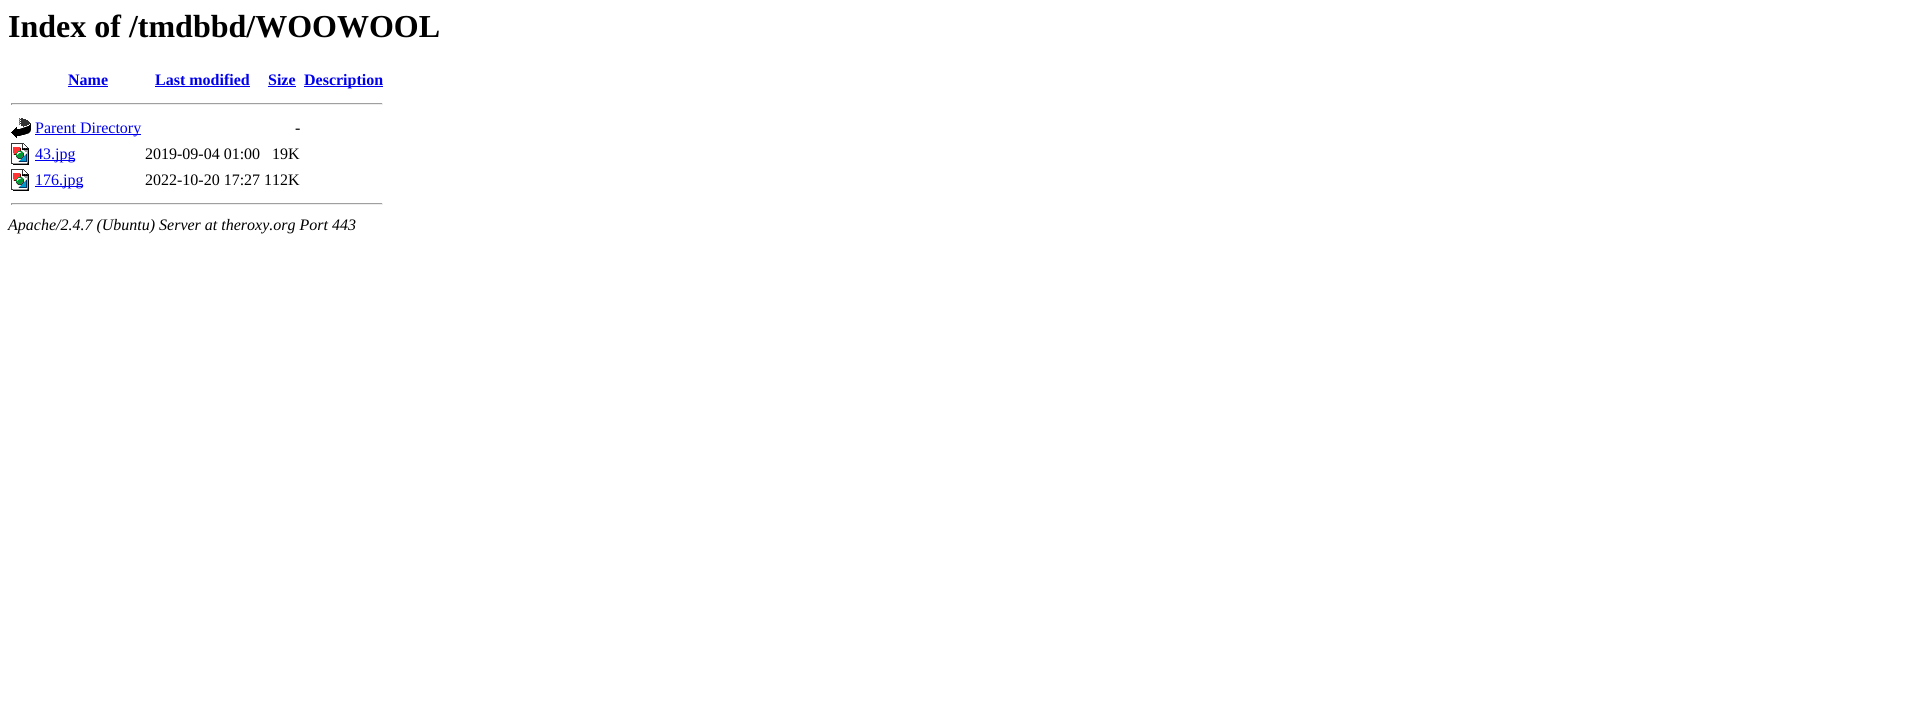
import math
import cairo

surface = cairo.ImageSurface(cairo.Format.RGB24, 1925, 714)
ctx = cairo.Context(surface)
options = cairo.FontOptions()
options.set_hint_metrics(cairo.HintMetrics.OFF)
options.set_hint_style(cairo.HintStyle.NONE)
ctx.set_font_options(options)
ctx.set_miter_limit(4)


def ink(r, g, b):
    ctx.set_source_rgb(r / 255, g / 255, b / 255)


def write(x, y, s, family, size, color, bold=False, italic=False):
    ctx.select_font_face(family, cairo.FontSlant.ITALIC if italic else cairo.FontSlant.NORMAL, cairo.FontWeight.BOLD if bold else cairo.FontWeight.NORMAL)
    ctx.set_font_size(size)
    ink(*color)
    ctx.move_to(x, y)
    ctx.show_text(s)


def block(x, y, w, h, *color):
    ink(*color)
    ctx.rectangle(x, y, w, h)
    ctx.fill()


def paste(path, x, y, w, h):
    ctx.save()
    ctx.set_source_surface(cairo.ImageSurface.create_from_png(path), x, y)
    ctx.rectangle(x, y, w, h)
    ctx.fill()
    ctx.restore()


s1 = dict(family="Liberation Serif", size=32, color=(0, 0, 0), bold=True)
s2 = dict(family="Liberation Serif", size=16, color=(0, 0, 238), bold=True)
s3 = dict(family="Liberation Serif", size=16, color=(0, 0, 238))
s4 = dict(family="Liberation Serif", size=16, color=(0, 0, 0))
s5 = dict(family="Liberation Serif", size=16, color=(0, 0, 0), italic=True)

ink(255, 255, 255)
ctx.paint()
write(8, 37, "Index of /tmdbbd/WOOWOOL", **s1)
write(68, 85, "Name", **s2)
block(68, 86, 40, 1, 0, 0, 238)
write(155, 85, "Last modified", **s2)
block(155, 86, 95, 1, 0, 0, 238)
write(268, 85, "Size", **s2)
block(268, 86, 28, 1, 0, 0, 238)
block(304, 86, 79, 1, 0, 0, 238)
write(304, 85, "Description", **s2)
block(11, 103, 372, 1, 159, 159, 159)
block(382, 103, 1, 2, 238, 238, 238)
block(11, 104, 372, 1, 238, 238, 238)
block(11, 103, 1, 2, 159, 159, 159)
paste("pic1.png", 11, 118, 20, 20)
block(35, 134, 106, 1, 0, 0, 238)
write(35, 133, "Parent Directory", **s3)
write(295, 133, "-", **s4)
paste("pic2.png", 11, 143, 18, 22)
block(35, 160, 40, 1, 0, 0, 238)
write(35, 159, "43.jpg", **s3)
write(145, 159, "2019-09-04 01:00", **s4)
write(272, 159, "19K", **s4)
paste("pic2.png", 11, 169, 18, 22)
block(35, 186, 48, 1, 0, 0, 238)
write(35, 185, "176.jpg", **s3)
write(145, 185, "2022-10-20 17:27 112K", **s4)
block(11, 203, 372, 1, 159, 159, 159)
block(382, 203, 1, 2, 238, 238, 238)
block(11, 204, 372, 1, 238, 238, 238)
block(11, 203, 1, 2, 159, 159, 159)
write(8, 230, "Apache/2.4.7 (Ubuntu) Server at theroxy.org Port 443", **s5)
surface.write_to_png("screenshot.png")
